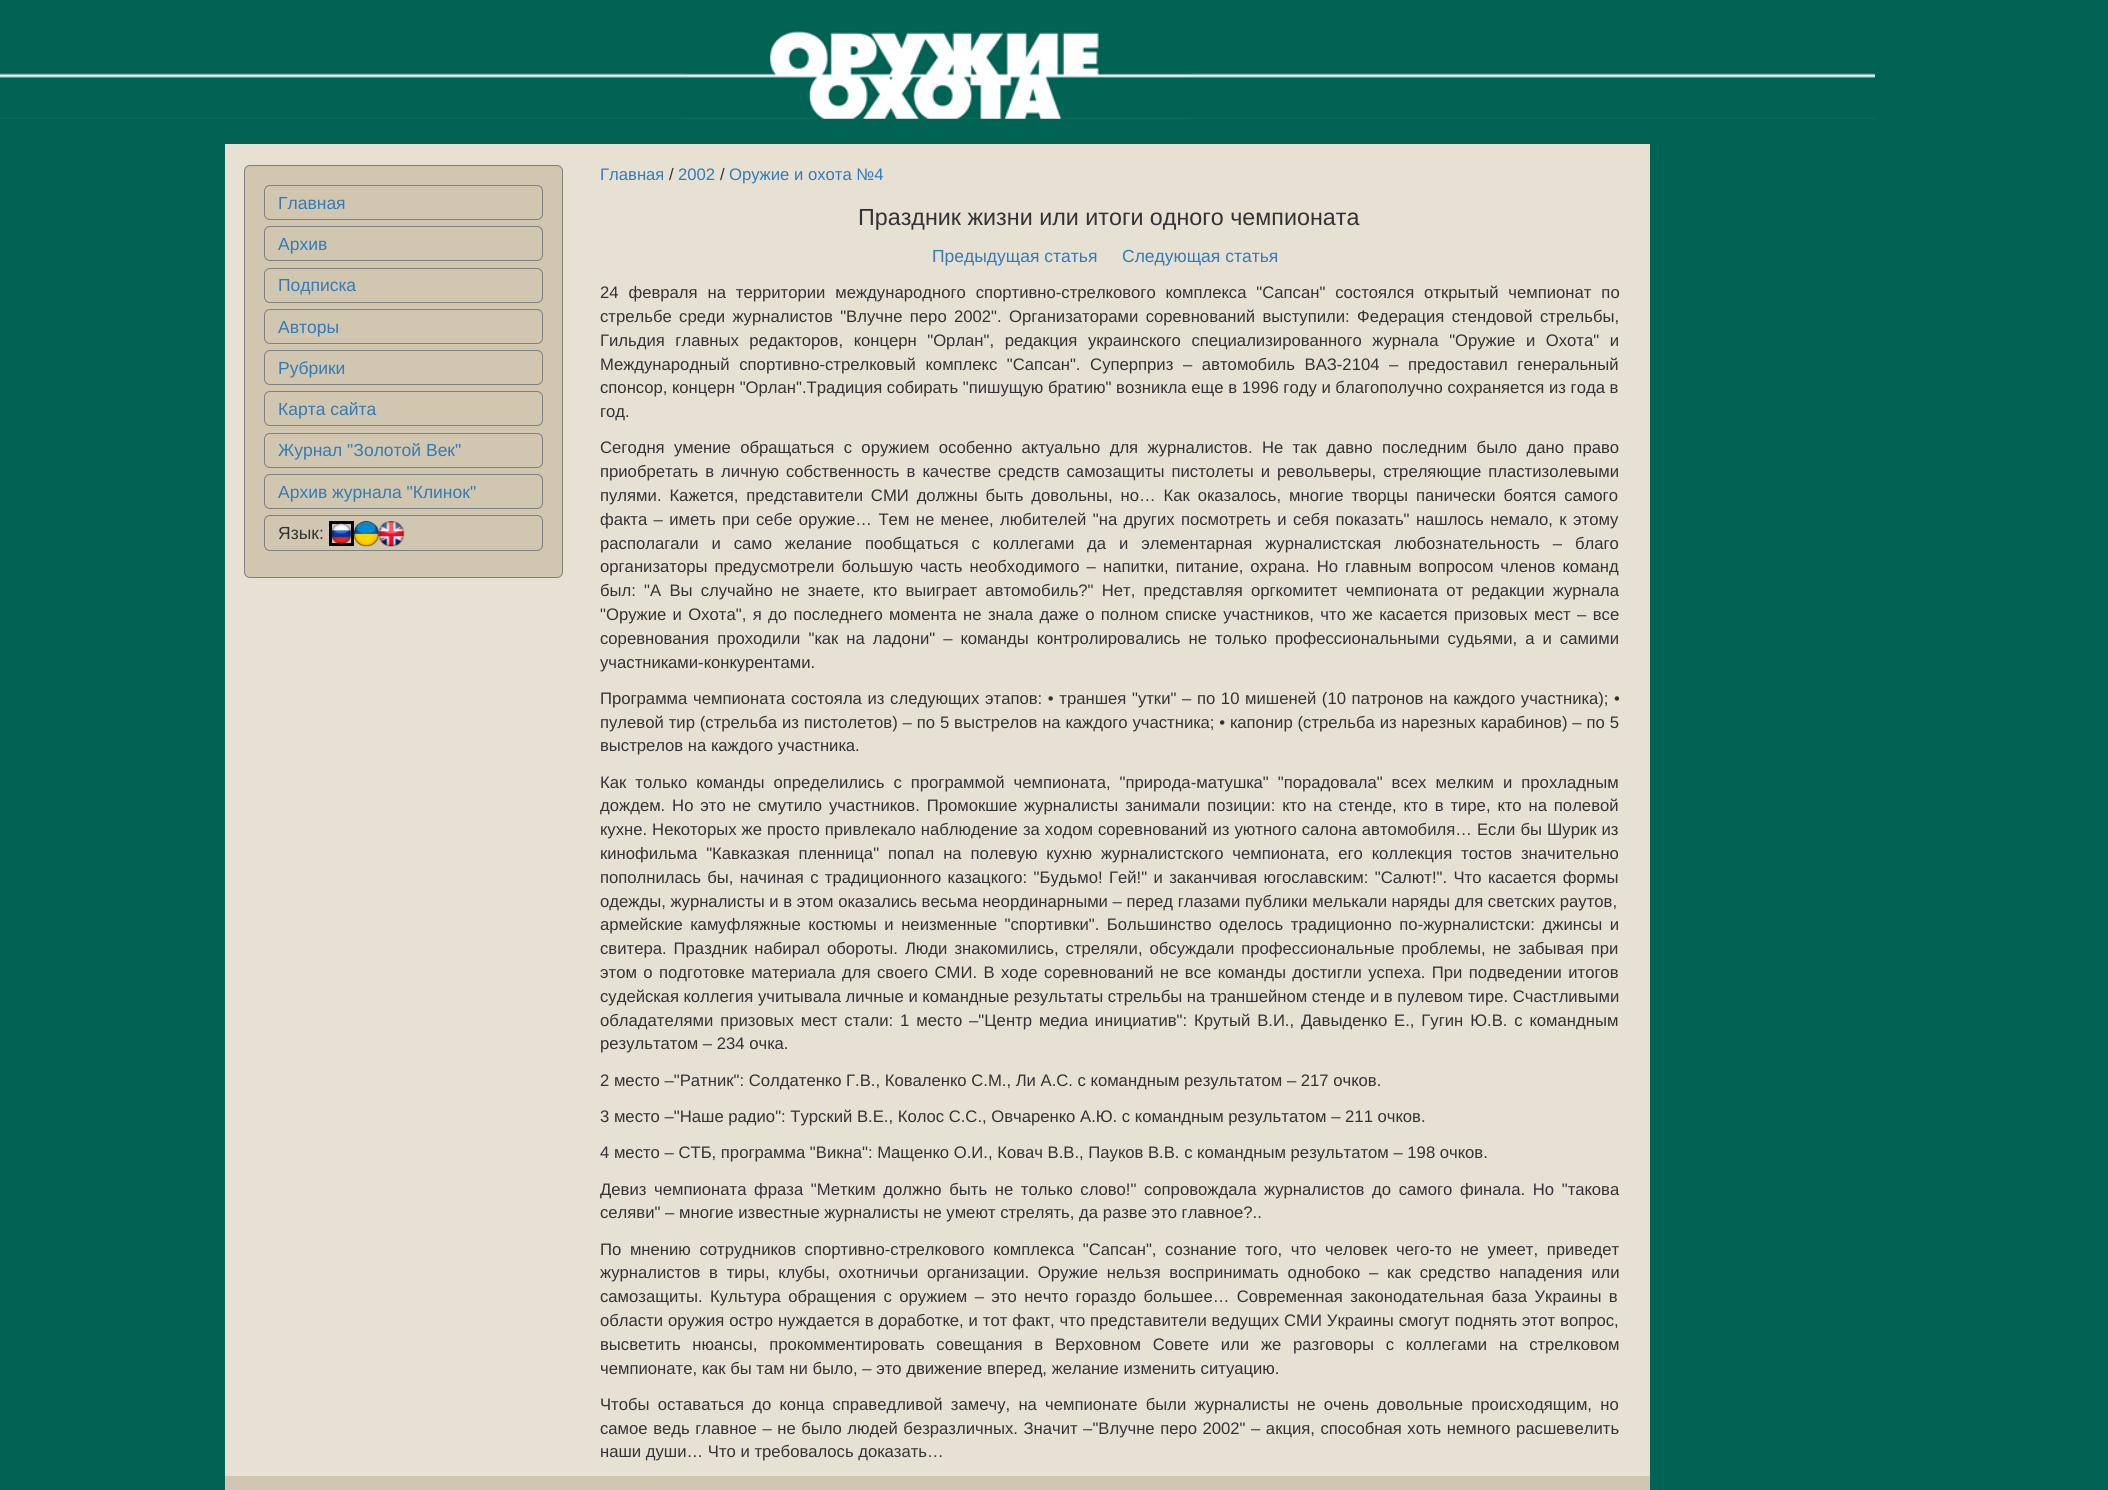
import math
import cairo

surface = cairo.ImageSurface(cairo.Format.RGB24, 2108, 1490)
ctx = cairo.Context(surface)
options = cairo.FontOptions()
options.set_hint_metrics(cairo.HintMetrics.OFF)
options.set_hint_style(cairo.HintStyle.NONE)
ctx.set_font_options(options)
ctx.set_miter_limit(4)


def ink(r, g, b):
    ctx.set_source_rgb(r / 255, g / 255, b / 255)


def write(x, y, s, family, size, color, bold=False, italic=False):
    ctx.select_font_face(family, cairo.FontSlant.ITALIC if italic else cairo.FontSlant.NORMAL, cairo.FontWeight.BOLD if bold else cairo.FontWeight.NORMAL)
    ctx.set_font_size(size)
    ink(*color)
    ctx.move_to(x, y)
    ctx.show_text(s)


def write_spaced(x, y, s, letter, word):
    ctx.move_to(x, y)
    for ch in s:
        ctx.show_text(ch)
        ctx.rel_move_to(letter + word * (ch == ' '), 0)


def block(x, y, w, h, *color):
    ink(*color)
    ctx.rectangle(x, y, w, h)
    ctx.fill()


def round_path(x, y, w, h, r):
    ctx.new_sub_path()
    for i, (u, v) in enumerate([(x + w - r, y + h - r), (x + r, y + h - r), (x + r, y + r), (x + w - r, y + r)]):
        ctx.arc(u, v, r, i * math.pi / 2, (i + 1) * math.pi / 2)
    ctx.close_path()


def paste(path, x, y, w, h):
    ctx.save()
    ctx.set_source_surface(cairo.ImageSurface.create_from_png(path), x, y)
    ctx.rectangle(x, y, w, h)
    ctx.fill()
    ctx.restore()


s1 = dict(family="Liberation Sans", size=17.5, color=(51, 122, 183))
s2 = dict(family="Liberation Sans", size=17.5, color=(51, 51, 51))
s3 = dict(family="Liberation Sans", size=16.67, color=(51, 122, 183))
s4 = dict(family="Liberation Sans", size=16.67, color=(51, 51, 51))
s5 = dict(family="Liberation Sans", size=23.3, color=(51, 51, 51))

ink(0, 99, 84)
ctx.paint()
paste("pic1.png", 0, 72, 1875, 47)
paste("pic2.png", 685, 30, 506, 89)
block(225, 144, 1425, 1332, 231, 225, 212)
ink(209, 199, 176)
round_path(244.5, 165.5, 318, 412, 5.5)
ctx.fill_preserve()
ink(128, 128, 128)
ctx.set_line_width(1)
ctx.stroke()
round_path(264.5, 185.5, 278, 34, 5.5)
ctx.stroke()
write(278, 209, "Главная", **s1)
round_path(264.5, 226.5, 278, 34, 5.5)
ink(128, 128, 128)
ctx.stroke()
write(278, 250, "Архив", **s1)
round_path(264.5, 268.5, 278, 34, 5.5)
ink(128, 128, 128)
ctx.stroke()
write(278, 291, "Подписка", **s1)
round_path(264.5, 309.5, 278, 34, 5.5)
ink(128, 128, 128)
ctx.stroke()
write(278, 333, "Авторы", **s1)
round_path(264.5, 350.5, 278, 34, 5.5)
ink(128, 128, 128)
ctx.stroke()
write(278, 374, "Рубрики", **s1)
round_path(264.5, 391.5, 278, 34, 5.5)
ink(128, 128, 128)
ctx.stroke()
write(278, 415, "Карта сайта", **s1)
round_path(264.5, 433.5, 278, 34, 5.5)
ink(128, 128, 128)
ctx.stroke()
write(278, 456, "Журнал \"Золотой Век\"", **s1)
round_path(264.5, 474.5, 278, 34, 5.5)
ink(128, 128, 128)
ctx.stroke()
write(278, 498, "Архив журнала \"Клинок\"", **s1)
round_path(264.5, 515.5, 278, 35, 5.5)
ink(128, 128, 128)
ctx.stroke()
ctx.rectangle(330.5, 522.5, 22, 22)
ink(0, 0, 0)
ctx.set_line_width(3)
ctx.stroke()
paste("pic3.png", 353, 521, 26, 26)
paste("pic4.png", 378, 521, 27, 26)
write(278, 539, "Язык:", **s2)
paste("pic5.png", 330, 523, 22, 22)
write(600, 180, "Главная", **s3)
write(669, 180, "/", **s4)
write(678, 180, "2002", **s3)
write(720, 180, "/", **s4)
write(729, 180, "Оружие и охота №4", **s3)
write(858, 225, "Праздник жизни или итоги одного чемпионата", **s5)
write(932, 262, "Предыдущая статья", **s1)
write(1122, 262, "Следующая статья", **s1)
ctx.set_font_size(16.67)
ink(51, 51, 51)
write_spaced(600, 298, "24 февраля на территории международного спортивно-стрелкового комплекса \"Сапсан\" состоялся открытый чемпионат по", 0, 5.25)
write_spaced(600, 322, "стрельбе среди журналистов \"Влучне перо 2002\". Организаторами соревнований выступили: Федерация стендовой стрельбы,", 0, 2.75)
write_spaced(600, 346, "Гильдия главных редакторов, концерн \"Орлан\", редакция украинского специализированного журнала \"Оружие и Охота\" и", 0, 5.9)
write_spaced(600, 370, "Международный спортивно-стрелковый комплекс \"Сапсан\". Суперприз – автомобиль ВАЗ-2104 – предоставил генеральный", 0, 5)
write(600, 393, "спонсор, концерн \"Орлан\".Традиция собирать \"пишущую братию\" возникла еще в 1996 году и благополучно сохраняется из года в", **s4)
write(600, 417, "год.", **s4)
write_spaced(600, 453, "Сегодня умение обращаться с оружием особенно актуально для журналистов. Не так давно последним было дано право", 0, 4.75)
write_spaced(600, 477, "приобретать в личную собственность в качестве средств самозащиты пистолеты и револьверы, стреляющие пластизолевыми", 0, 2.4)
write_spaced(600, 501, "пулями. Кажется, представители СМИ должны быть довольны, но… Как оказалось, многие творцы панически боятся самого", 0, 3.25)
write_spaced(600, 525, "факта – иметь при себе оружие… Тем не менее, любителей \"на других посмотреть и себя показать\" нашлось немало, к этому", 0, 1.75)
write_spaced(600, 549, "располагали и само желание пообщаться с коллегами да и элементарная журналистская любознательность – благо", 0, 8.25)
write_spaced(600, 572, "организаторы предусмотрели большую часть необходимого – напитки, питание, охрана. Но главным вопросом членов команд", 0, 2.4)
write_spaced(600, 596, "был: \"А Вы случайно не знаете, кто выиграет автомобиль?\" Нет, представляя оргкомитет чемпионата от редакции журнала", 0, 3.6)
write_spaced(600, 620, "\"Оружие и Охота\", я до последнего момента не знала даже о полном списке участников, что же касается призовых мест – все", 0, 1.75)
write_spaced(600, 644, "соревнования проходили \"как на ладони\" – команды контролировались не только профессиональными судьями, а и самими", 0, 3.4)
write(600, 668, "участниками-конкурентами.", **s4)
write_spaced(600, 704, "Программа чемпионата состояла из следующих этапов: • траншея \"утки\" – по 10 мишеней (10 патронов на каждого участника); •", 0, 1)
write_spaced(600, 728, "пулевой тир (стрельба из пистолетов) – по 5 выстрелов на каждого участника; • капонир (стрельба из нарезных карабинов) – по 5", 0, 0.25)
write(600, 751, "выстрелов на каждого участника.", **s4)
write_spaced(600, 788, "Как только команды определились с программой чемпионата, \"природа-матушка\" \"порадовала\" всех мелким и прохладным", 0, 4.4)
write_spaced(600, 811, "дождем. Но это не смутило участников. Промокшие журналисты занимали позиции: кто на стенде, кто в тире, кто на полевой", 0, 2.25)
write_spaced(600, 835, "кухне. Некоторых же просто привлекало наблюдение за ходом соревнований из уютного салона автомобиля… Если бы Шурик из", 0, 0.4)
write_spaced(600, 859, "кинофильма \"Кавказкая пленница\" попал на полевую кухню журналистского чемпионата, его коллекция тостов значительно", 0, 4.25)
write_spaced(600, 883, "пополнилась бы, начиная с традиционного казацкого: \"Будьмо! Гей!\" и заканчивая югославским: \"Салют!\". Что касается формы", 0, 1.75)
write(600, 907, "одежды, журналисты и в этом оказались весьма неординарными – перед глазами публики мелькали наряды для светских раутов,", **s4)
write_spaced(600, 930, "армейские камуфляжные костюмы и неизменные \"спортивки\". Большинство оделось традиционно по-журналистски: джинсы и", 0, 2.9)
write_spaced(600, 954, "свитера. Праздник набирал обороты. Люди знакомились, стреляли, обсуждали профессиональные проблемы, не забывая при", 0, 2.4)
write_spaced(600, 978, "этом о подготовке материала для своего СМИ. В ходе соревнований не все команды достигли успеха. При подведении итогов", 0, 1.8)
write(600, 1002, "судейская коллегия учитывала личные и командные результаты стрельбы на траншейном стенде и в пулевом тире. Счастливыми", **s4)
write_spaced(600, 1026, "обладателями призовых мест стали: 1 место –\"Центр медиа инициатив\": Крутый В.И., Давыденко Е., Гугин Ю.В. с командным", 0, 2.25)
write(600, 1049, "результатом – 234 очка.", **s4)
write(600, 1086, "2 место –\"Ратник\": Солдатенко Г.В., Коваленко С.М., Ли А.С. с командным результатом – 217 очков.", **s4)
write(600, 1122, "3 место –\"Наше радио\": Турский В.Е., Колос С.С., Овчаренко А.Ю. с командным результатом – 211 очков.", **s4)
write(600, 1158, "4 место – СТБ, программа \"Викна\": Мащенко О.И., Ковач В.В., Пауков В.В. с командным результатом – 198 очков.", **s4)
write_spaced(600, 1195, "Девиз чемпионата фраза \"Метким должно быть не только слово!\" сопровождала журналистов до самого финала. Но \"такова", 0, 3)
write(600, 1218, "селяви\" – многие известные журналисты не умеют стрелять, да разве это главное?..", **s4)
write_spaced(600, 1255, "По мнению сотрудников спортивно-стрелкового комплекса \"Сапсан\", сознание того, что человек чего-то не умеет, приведет", 0, 4)
write_spaced(600, 1278, "журналистов в тиры, клубы, охотничьи организации. Оружие нельзя воспринимать однобоко – как средство нападения или", 0, 4.1)
write_spaced(600, 1302, "самозащиты. Культура обращения с оружием – это нечто гораздо большее… Современная законодательная база Украины в", 0, 2.75)
write_spaced(600, 1326, "области оружия остро нуждается в доработке, и тот факт, что представители ведущих СМИ Украины смогут поднять этот вопрос,", 0, 0.25)
write_spaced(600, 1350, "высветить нюансы, прокомментировать совещания в Верховном Совете или же разговоры с коллегами на стрелковом", 0, 7.1)
write(600, 1374, "чемпионате, как бы там ни было, – это движение вперед, желание изменить ситуацию.", **s4)
write_spaced(600, 1410, "Чтобы оставаться до конца справедливой замечу, на чемпионате были журналисты не очень довольные происходящим, но", 0, 3.6)
write_spaced(600, 1434, "самое ведь главное – не было людей безразличных. Значит –\"Влучне перо 2002\" – акция, способная хоть немного расшевелить", 0, 0.9)
write(600, 1457, "наши души… Что и требовалось доказать…", **s4)
block(225, 1476, 1425, 14, 209, 199, 176)
surface.write_to_png("screenshot.png")
